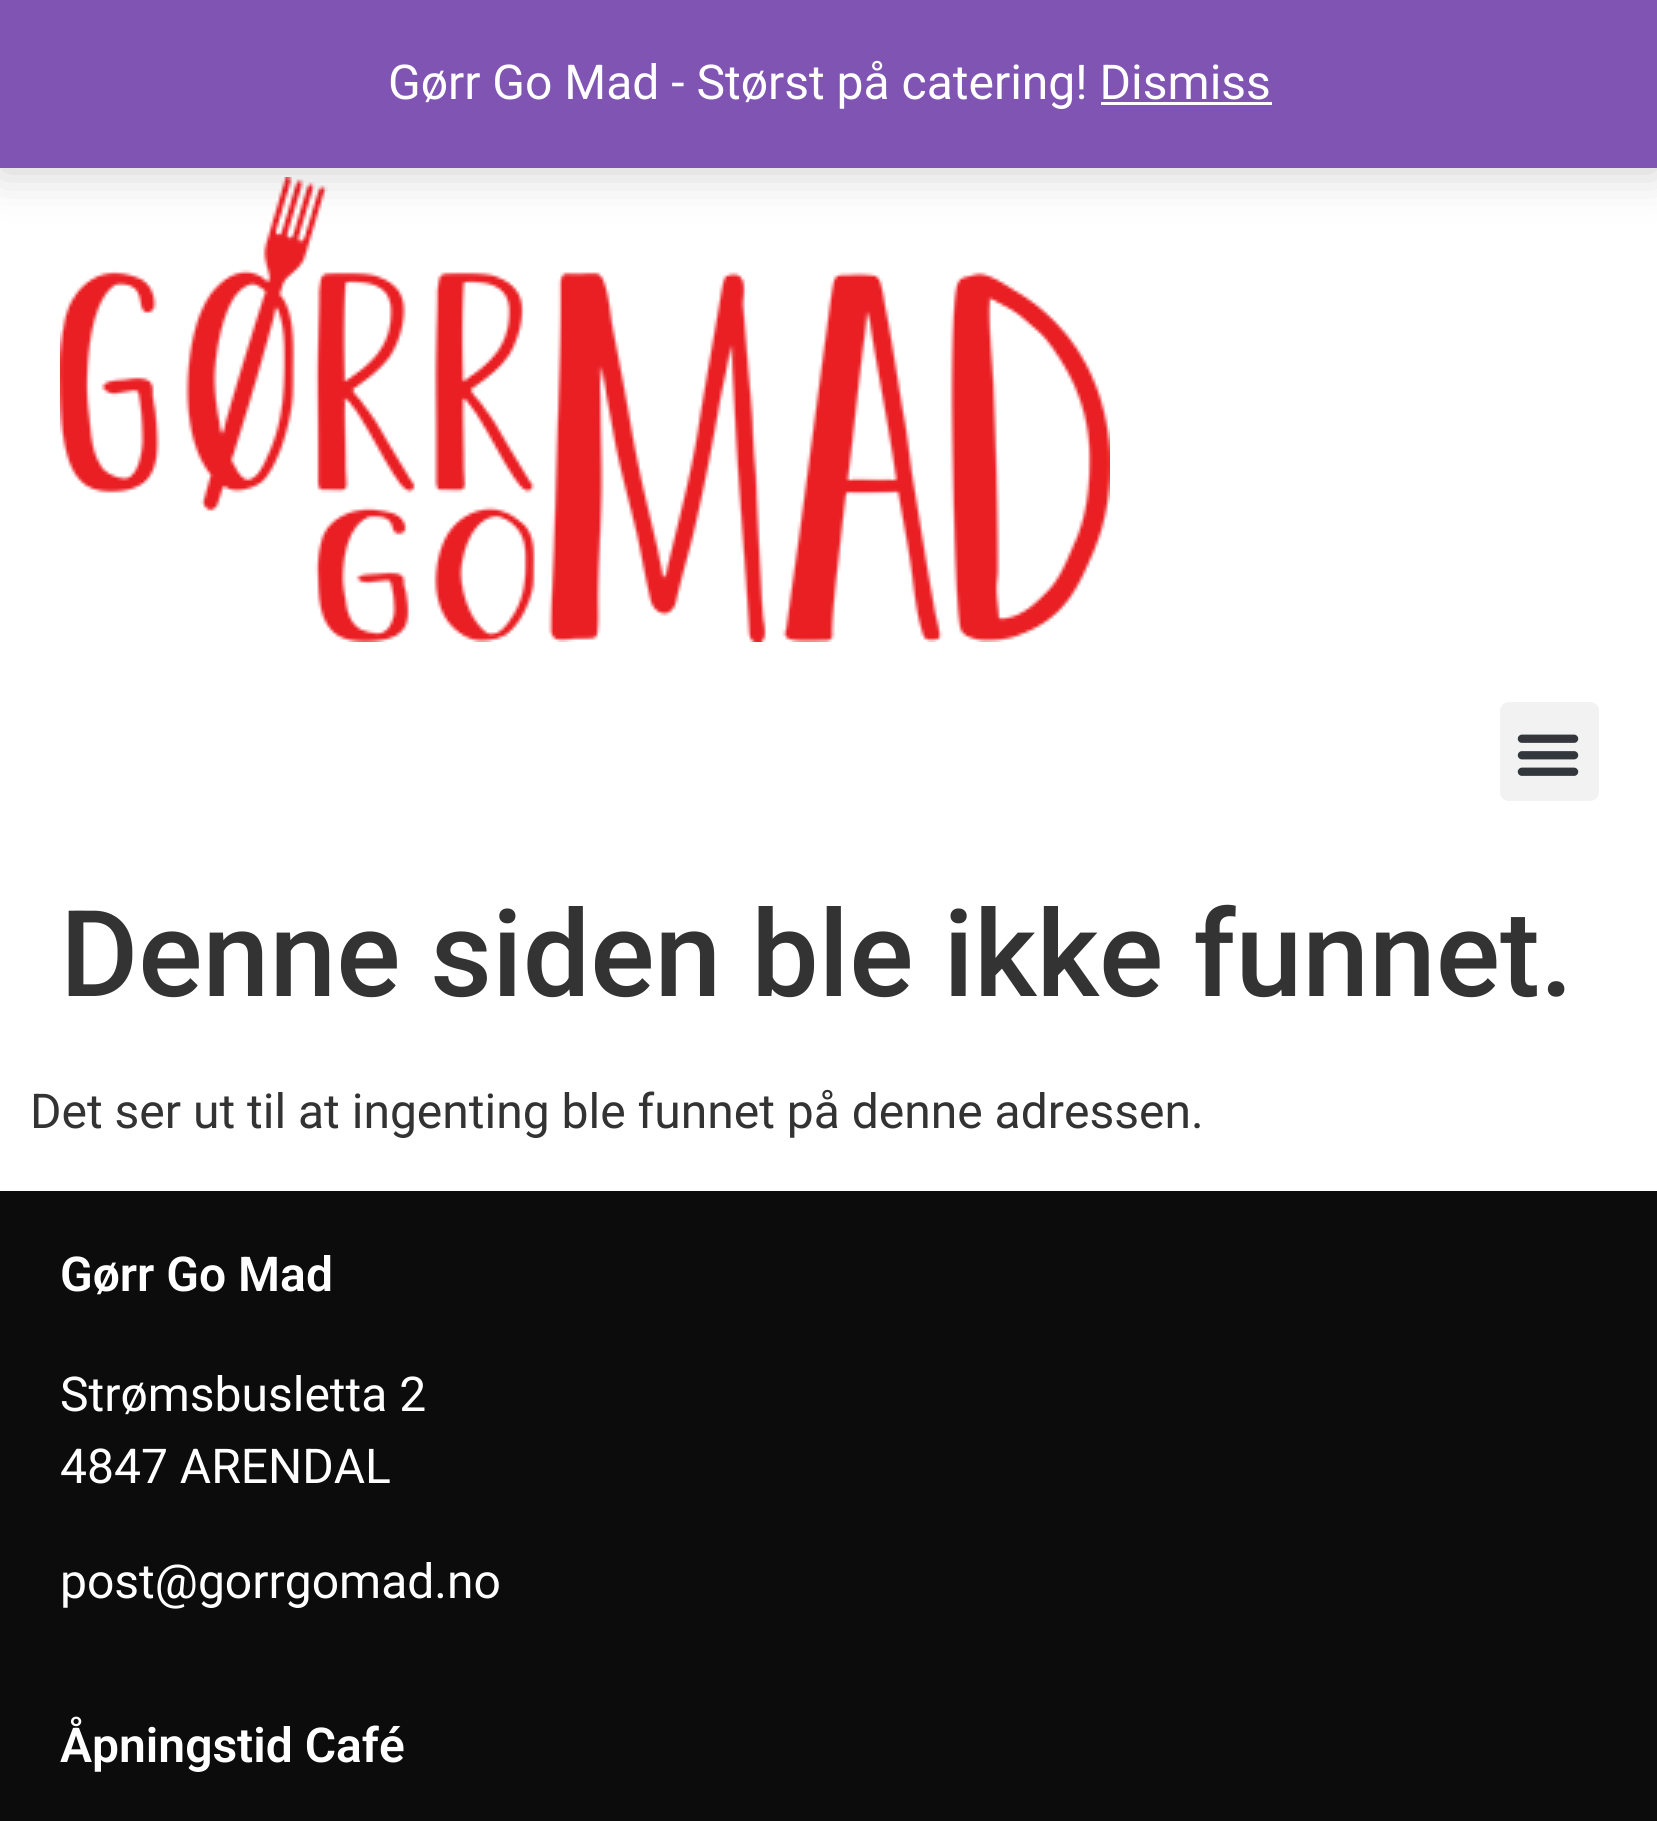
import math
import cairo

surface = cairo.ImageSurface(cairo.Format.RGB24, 1657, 1821)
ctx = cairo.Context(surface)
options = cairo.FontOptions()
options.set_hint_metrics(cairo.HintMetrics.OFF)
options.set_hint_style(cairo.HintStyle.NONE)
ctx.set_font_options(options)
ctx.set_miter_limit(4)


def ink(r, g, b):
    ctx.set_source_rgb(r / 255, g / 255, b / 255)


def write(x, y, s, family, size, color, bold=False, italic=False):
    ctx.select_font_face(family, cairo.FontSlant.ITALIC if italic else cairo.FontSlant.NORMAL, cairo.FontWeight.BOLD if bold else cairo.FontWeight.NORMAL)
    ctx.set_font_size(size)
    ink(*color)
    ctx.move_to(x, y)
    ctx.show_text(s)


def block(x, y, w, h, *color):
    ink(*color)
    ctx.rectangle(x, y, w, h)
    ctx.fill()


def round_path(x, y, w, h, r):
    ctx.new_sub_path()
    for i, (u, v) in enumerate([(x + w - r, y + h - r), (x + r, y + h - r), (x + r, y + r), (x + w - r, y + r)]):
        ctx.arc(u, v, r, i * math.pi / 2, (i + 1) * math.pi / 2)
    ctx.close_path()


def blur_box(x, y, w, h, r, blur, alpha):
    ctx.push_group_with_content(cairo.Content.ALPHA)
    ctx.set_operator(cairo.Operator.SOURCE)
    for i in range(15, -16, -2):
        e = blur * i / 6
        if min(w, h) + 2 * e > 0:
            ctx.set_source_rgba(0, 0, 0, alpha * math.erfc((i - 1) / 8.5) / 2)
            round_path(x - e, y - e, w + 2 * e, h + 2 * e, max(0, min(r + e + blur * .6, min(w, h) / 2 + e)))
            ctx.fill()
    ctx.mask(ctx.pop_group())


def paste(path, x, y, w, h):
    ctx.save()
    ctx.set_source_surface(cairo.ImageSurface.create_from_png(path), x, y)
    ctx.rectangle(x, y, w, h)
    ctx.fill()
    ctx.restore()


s1 = dict(family="Roboto", size=48, color=(255, 255, 255))
s2 = dict(family="Roboto Medium", size=120, color=(51, 51, 51))
s3 = dict(family="Roboto", size=48, color=(51, 51, 51))
s4 = dict(family="Roboto SemiBold", size=48, color=(255, 255, 255))

ink(255, 255, 255)
ctx.paint()
paste("pic1.png", 60, 177, 1050, 465)
ink(0, 0, 0)
blur_box(0, 3, 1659, 168, 0, 24, 0.2)
block(0, 0, 1657, 168, 127, 84, 179)
write(388, 99, "Gørr Go Mad - Størst på catering! Dismiss", **s1)
block(1101, 102, 171, 3, 255, 255, 255)
ink(242, 242, 242)
round_path(1500, 702, 99, 99, 9)
ctx.fill()
paste("pic2.png", 1517, 734, 62, 42)
write(60, 996, "Denne siden ble ikke funnet.", **s2)
write(30, 1128, "Det ser ut til at ingenting ble funnet på denne adressen.", **s3)
block(0, 1191, 1657, 630, 12, 12, 12)
write(60, 1291, "Gørr Go Mad", **s4)
write(60, 1411, "Strømsbusletta 2", **s1)
write(60, 1483, "4847 ARENDAL", **s1)
write(60, 1598, "post@gorrgomad.no", **s1)
write(60, 1762, "Åpningstid Café", **s4)
surface.write_to_png("screenshot.png")
